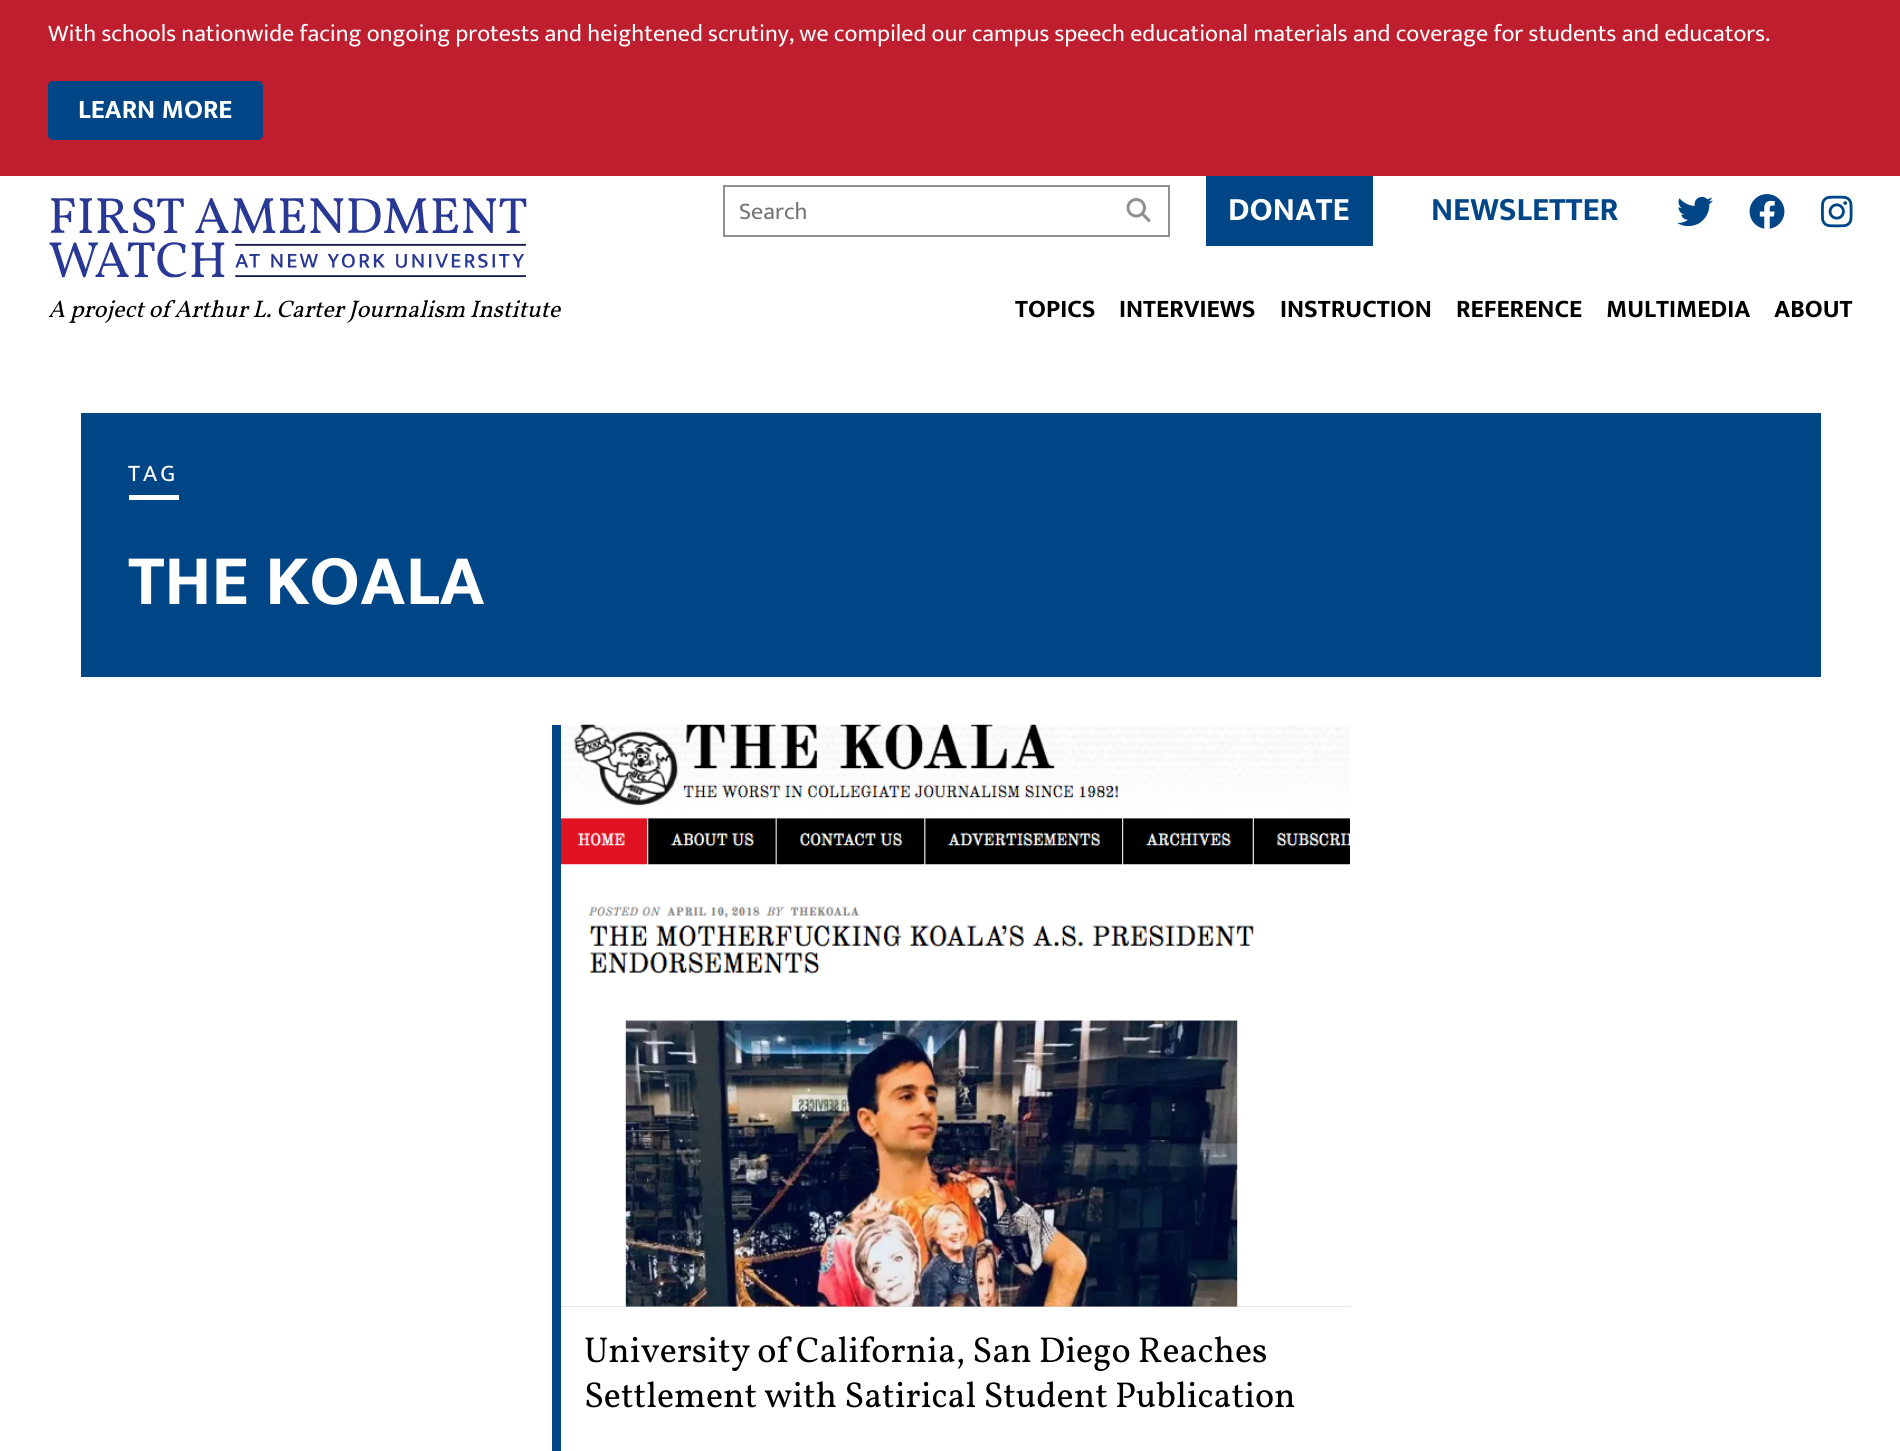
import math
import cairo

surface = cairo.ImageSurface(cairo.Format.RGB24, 1900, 1451)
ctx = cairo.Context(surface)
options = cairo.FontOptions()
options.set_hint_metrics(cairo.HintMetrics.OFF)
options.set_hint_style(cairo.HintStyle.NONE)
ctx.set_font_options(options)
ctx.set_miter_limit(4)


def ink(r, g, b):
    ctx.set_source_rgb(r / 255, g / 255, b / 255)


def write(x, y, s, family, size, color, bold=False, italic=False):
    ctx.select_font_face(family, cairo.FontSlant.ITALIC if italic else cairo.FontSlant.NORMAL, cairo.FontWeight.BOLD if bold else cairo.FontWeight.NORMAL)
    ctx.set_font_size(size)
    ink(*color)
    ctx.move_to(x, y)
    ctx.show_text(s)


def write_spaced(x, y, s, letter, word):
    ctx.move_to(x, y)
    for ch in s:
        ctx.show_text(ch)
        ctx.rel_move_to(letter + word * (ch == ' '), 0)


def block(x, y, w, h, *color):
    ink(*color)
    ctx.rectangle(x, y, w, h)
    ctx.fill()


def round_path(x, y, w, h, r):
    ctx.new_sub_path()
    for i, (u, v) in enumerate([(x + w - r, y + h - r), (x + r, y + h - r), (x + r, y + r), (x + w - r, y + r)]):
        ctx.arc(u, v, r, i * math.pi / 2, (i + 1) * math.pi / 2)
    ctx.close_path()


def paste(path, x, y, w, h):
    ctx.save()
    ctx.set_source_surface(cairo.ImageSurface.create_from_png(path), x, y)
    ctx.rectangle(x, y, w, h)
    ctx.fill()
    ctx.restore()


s1 = dict(family="Mukta", size=24, color=(255, 255, 255))
s2 = dict(family="Mukta", size=27, color=(255, 255, 255), bold=True)
s3 = dict(family="Vollkorn", size=24, color=(0, 0, 0), italic=True)
s4 = dict(family="Mukta", size=24, color=(117, 117, 117))
s5 = dict(family="Mukta", size=33, color=(255, 255, 255), bold=True)
s6 = dict(family="Mukta", size=33, color=(0, 70, 134), bold=True)
s7 = dict(family="Mukta", size=25.5, color=(0, 0, 0), bold=True)
s8 = dict(family="Mukta", size=72, color=(255, 255, 255), bold=True)
s9 = dict(family="Vollkorn", size=36, color=(0, 0, 0))

ink(255, 255, 255)
ctx.paint()
block(0, 0, 1900, 176, 191, 30, 46)
write(48, 41, "With schools nationwide facing ongoing protests and heightened scrutiny, we compiled our campus speech educational materials and coverage for students and educators.", **s1)
ink(0, 70, 134)
round_path(48, 81, 215, 59, 5)
ctx.fill()
write(78, 118, "LEARN MORE", **s2)
paste("pic1.png", 49, 198, 478, 80)
write(48, 317, "A project of Arthur L. Carter Journalism Institute", **s3)
ctx.rectangle(724, 186, 445, 50)
ink(144, 144, 144)
ctx.stroke()
write(739, 219, "Search", **s4)
paste("pic2.png", 1126, 198, 25, 24)
block(1206, 176, 167, 70, 0, 70, 134)
write(1228, 220, "DONATE", **s5)
write(1431, 220, "NEWSLETTER", **s6)
paste("pic3.png", 1677, 196, 36, 31)
paste("pic4.png", 1749, 194, 36, 35)
paste("pic5.png", 1821, 195, 32, 33)
write(1015, 317, "TOPICS", **s7)
write(1119, 317, "INTERVIEWS", **s7)
write(1280, 317, "INSTRUCTION", **s7)
write(1456, 317, "REFERENCE", **s7)
write(1606, 317, "MULTIMEDIA", **s7)
write(1774, 317, "ABOUT", **s7)
block(81, 413, 1740, 264, 0, 70, 134)
ctx.select_font_face("Mukta")
ctx.set_font_size(24)
ink(255, 255, 255)
write_spaced(128, 481, "TAG", 3, 0)
block(129, 495, 50, 5, 255, 255, 255)
write(128, 604, "THE KOALA", **s8)
block(552, 725, 9, 726, 0, 70, 134)
block(561, 1306, 789, 1, 204, 204, 204)
paste("pic6.png", 561, 724, 789, 583)
write(584, 1362, "University of California, San Diego Reaches", **s9)
write(584, 1407, "Settlement with Satirical Student Publication", **s9)
surface.write_to_png("screenshot.png")
